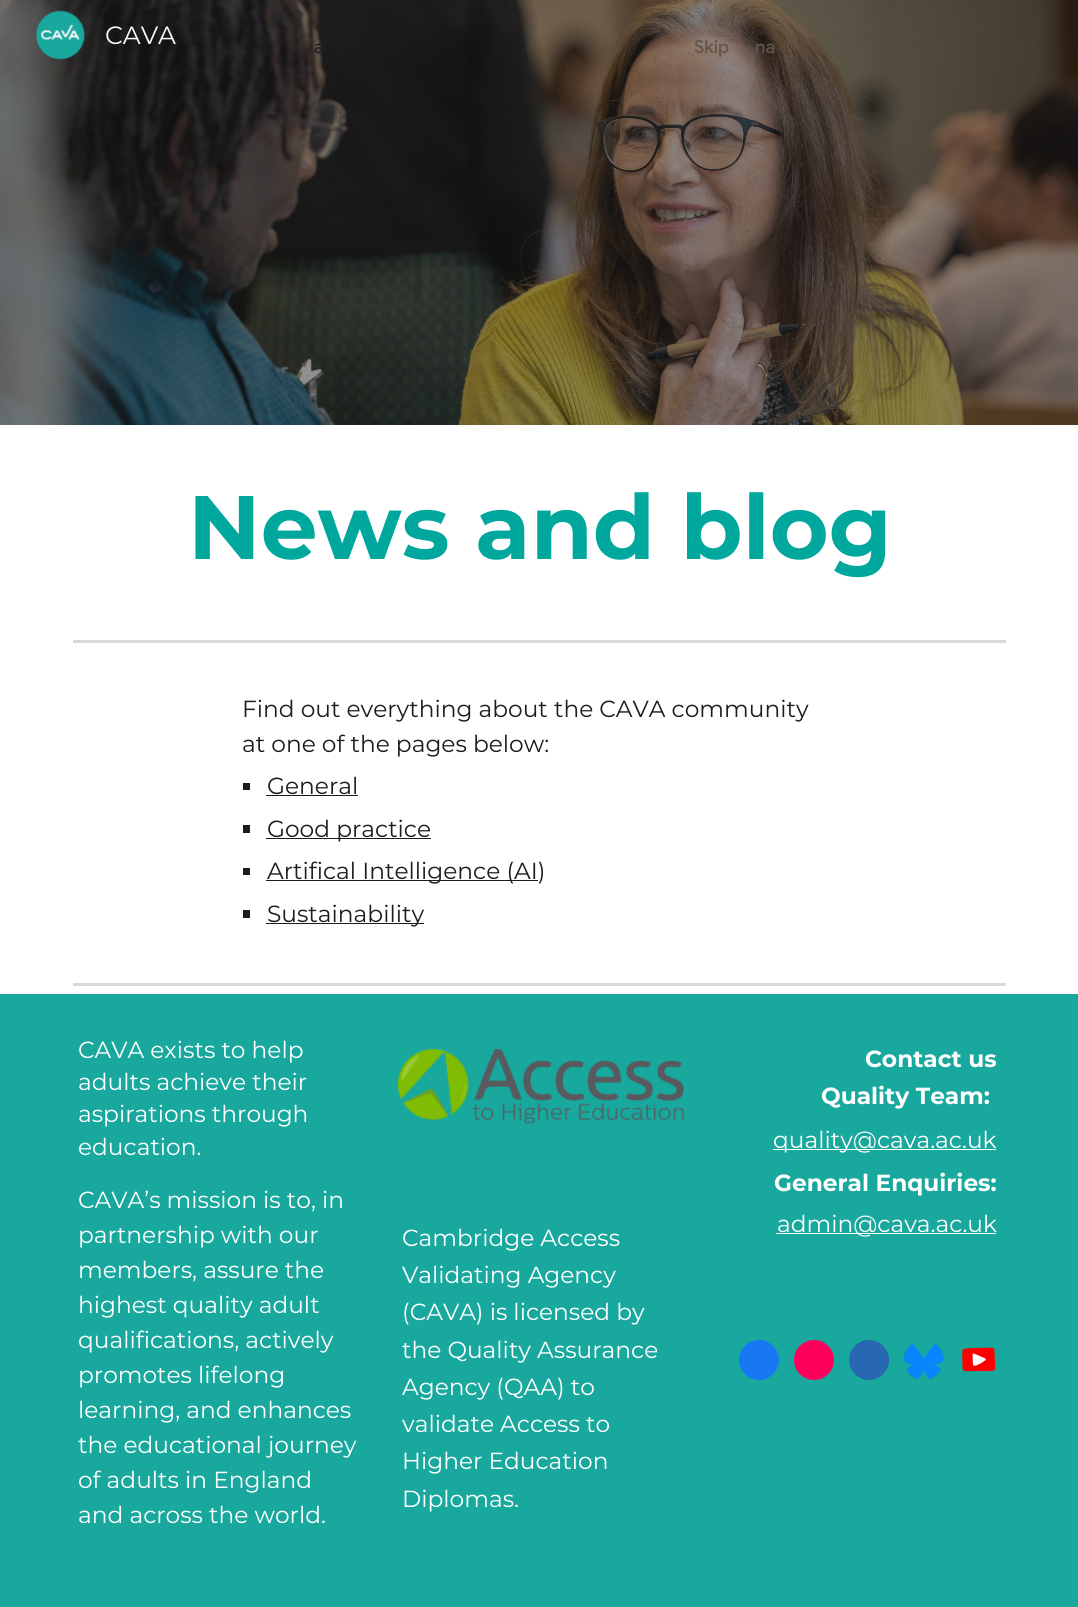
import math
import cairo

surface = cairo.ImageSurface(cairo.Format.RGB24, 1078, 1607)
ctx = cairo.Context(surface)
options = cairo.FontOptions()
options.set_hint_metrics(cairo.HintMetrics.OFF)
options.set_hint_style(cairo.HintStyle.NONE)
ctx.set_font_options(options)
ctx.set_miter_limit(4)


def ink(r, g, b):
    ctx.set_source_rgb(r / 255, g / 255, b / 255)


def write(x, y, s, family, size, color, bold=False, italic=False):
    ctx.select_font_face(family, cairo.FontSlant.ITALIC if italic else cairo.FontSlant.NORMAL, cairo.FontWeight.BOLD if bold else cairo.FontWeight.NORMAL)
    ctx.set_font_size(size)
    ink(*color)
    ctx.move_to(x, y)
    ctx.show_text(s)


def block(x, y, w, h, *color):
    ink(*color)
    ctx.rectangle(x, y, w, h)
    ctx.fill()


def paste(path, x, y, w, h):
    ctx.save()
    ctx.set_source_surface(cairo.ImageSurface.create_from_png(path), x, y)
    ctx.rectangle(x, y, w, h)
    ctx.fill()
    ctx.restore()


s1 = dict(family="Montserrat", size=25, color=(249, 249, 249))
s2 = dict(family="Montserrat", size=90, color=(0, 167, 157), bold=True)
s3 = dict(family="Montserrat", size=23.3, color=(28, 28, 28))
s4 = dict(family="Montserrat", size=23.3, color=(255, 255, 255))
s5 = dict(family="Montserrat", size=23.3, color=(255, 255, 255), bold=True)
s6 = dict(family="Google Sans Medium", size=18, color=(34, 32, 31))
s7 = dict(family="Google Sans Medium", size=18, color=(100, 85, 73))

ink(255, 255, 255)
ctx.paint()
paste("pic2.png", 0, 0, 1078, 425)
paste("pic1.png", 35, 10, 50, 50)
write(105, 44, "CAVA", **s1)
write(188, 559, "News and blog", **s2)
block(73, 640, 933, 3, 217, 217, 217)
write(242, 717, "Find out everything about the CAVA community", **s3)
write(242, 752, "at one of the pages below:", **s3)
block(243, 783, 7, 7, 28, 28, 28)
write(267, 794, "General", **s3)
block(266, 795, 92, 1, 28, 28, 28)
block(243, 825, 7, 8, 28, 28, 28)
block(266, 838, 165, 1, 28, 28, 28)
write(267, 837, "Good practice", **s3)
block(243, 868, 7, 7, 28, 28, 28)
block(266, 880, 272, 1, 28, 28, 28)
write(267, 879, "Artifical Intelligence (AI)", **s3)
block(243, 910, 7, 8, 28, 28, 28)
block(266, 923, 158, 1, 28, 28, 28)
write(267, 922, "Sustainability", **s3)
block(73, 983, 933, 3, 217, 217, 217)
block(0, 994, 1078, 613, 25, 168, 157)
write(78, 1058, "CAVA exists to help", **s4)
write(78, 1090, "adults achieve their", **s4)
write(78, 1122, "aspirations through", **s4)
write(78, 1155, "education.", **s4)
write(78, 1208, "CAVA’s mission is to, in", **s4)
write(78, 1243, "partnership with our", **s4)
write(78, 1278, "members, assure the", **s4)
write(78, 1313, "highest quality adult", **s4)
write(78, 1348, "qualifications, actively", **s4)
write(78, 1383, "promotes lifelong", **s4)
write(78, 1418, "learning, and enhances", **s4)
write(78, 1453, "the educational journey", **s4)
write(78, 1488, "of adults in England", **s4)
write(78, 1523, "and across the world.", **s4)
write(865, 1067, "Contact us", **s5)
write(821, 1104, "Quality Team:", **s5)
block(773, 1149, 223, 1, 255, 255, 255)
write(773, 1148, "quality@cava.ac.uk", **s4)
write(774, 1191, "General Enquiries:", **s5)
block(776, 1233, 220, 1, 255, 255, 255)
write(777, 1232, "admin@cava.ac.uk", **s4)
ink(24, 119, 242)
ctx.new_path()
ctx.arc(759, 1360, 20, 0, 2 * math.pi)
ctx.fill()
ink(254, 0, 92)
ctx.arc(814, 1360, 20, 0, 2 * math.pi)
ctx.fill()
ink(40, 103, 178)
ctx.arc(869, 1360, 20, 0, 2 * math.pi)
ctx.fill()
paste("pic3.png", 903, 1344, 41, 35)
paste("pic4.png", 962, 1347, 34, 25)
paste("pic5.png", 398, 1049, 286, 75)
write(402, 1246, "Cambridge Access", **s4)
write(402, 1283, "Validating Agency", **s4)
write(402, 1320, "(CAVA) is licensed by", **s4)
write(402, 1358, "the Quality Assurance", **s4)
write(402, 1395, "Agency (QAA) to", **s4)
write(402, 1432, "validate Access to", **s4)
write(402, 1469, "Higher Education", **s4)
write(402, 1507, "Diplomas.", **s4)
write(314, 53, "a", **s6)
write(694, 53, "Skip", **s7)
write(755, 53, "na", **s7)
surface.write_to_png("screenshot.png")
